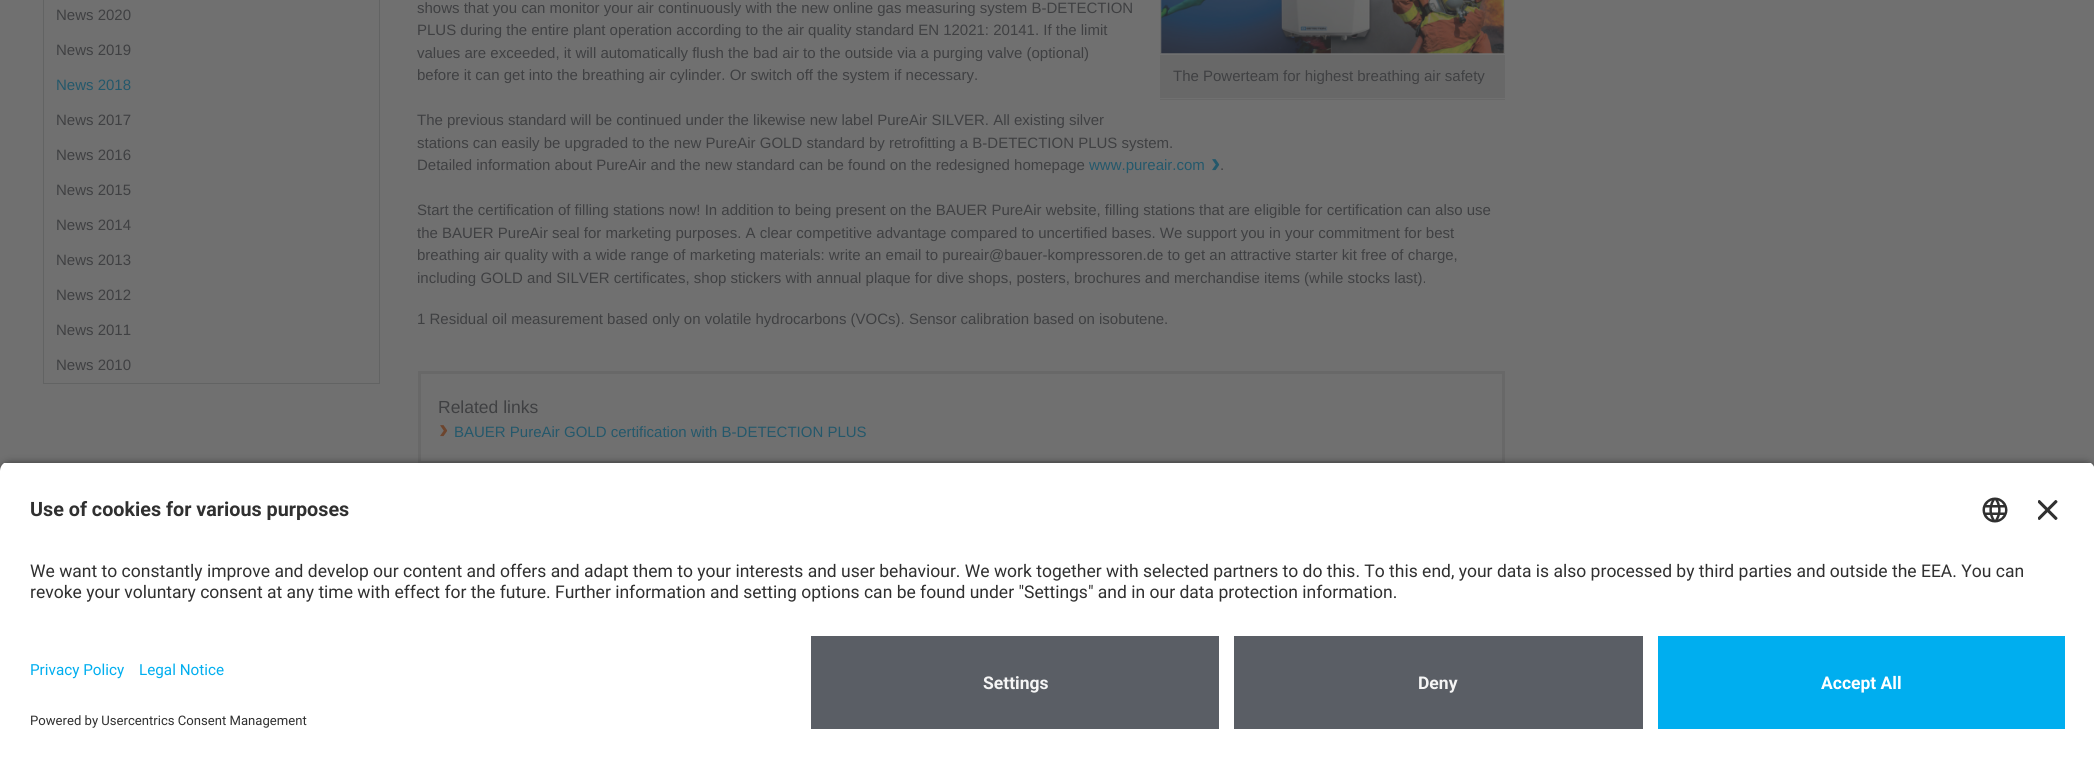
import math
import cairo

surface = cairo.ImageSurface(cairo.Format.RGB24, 2094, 758)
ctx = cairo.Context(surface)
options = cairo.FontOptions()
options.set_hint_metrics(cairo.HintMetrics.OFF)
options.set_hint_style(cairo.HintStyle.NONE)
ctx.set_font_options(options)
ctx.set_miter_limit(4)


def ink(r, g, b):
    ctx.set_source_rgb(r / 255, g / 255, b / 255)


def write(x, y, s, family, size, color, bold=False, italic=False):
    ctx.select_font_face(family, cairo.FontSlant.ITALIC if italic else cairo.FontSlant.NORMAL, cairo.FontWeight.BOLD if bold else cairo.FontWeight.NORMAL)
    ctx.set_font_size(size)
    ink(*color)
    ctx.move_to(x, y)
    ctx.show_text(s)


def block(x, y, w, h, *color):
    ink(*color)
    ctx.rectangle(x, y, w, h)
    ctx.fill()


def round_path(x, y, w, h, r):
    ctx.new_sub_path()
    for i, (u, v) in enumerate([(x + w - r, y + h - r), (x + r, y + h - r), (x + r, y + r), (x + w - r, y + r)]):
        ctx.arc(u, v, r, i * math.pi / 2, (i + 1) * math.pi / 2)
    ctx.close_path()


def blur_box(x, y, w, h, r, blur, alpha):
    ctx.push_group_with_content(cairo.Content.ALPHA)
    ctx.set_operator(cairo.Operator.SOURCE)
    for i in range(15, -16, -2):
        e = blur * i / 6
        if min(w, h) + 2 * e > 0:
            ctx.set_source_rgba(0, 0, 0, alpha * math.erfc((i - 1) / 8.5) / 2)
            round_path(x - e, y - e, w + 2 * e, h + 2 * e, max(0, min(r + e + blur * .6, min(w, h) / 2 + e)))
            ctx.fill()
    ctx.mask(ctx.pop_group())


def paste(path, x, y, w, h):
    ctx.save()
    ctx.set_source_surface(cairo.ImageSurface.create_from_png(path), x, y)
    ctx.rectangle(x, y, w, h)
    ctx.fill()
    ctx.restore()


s1 = dict(family="Liberation Sans", size=15, color=(63, 64, 66))
s2 = dict(family="Liberation Sans", size=15, color=(36, 88, 107))
s3 = dict(family="Liberation Sans", size=28, color=(36, 88, 107), bold=True)
s4 = dict(family="Liberation Sans", size=17.5, color=(63, 64, 66))
s5 = dict(family="Liberation Sans", size=28, color=(109, 69, 46), bold=True)
s6 = dict(family="Roboto", size=19.75, color=(48, 48, 48), bold=True)
s7 = dict(family="Roboto", size=17.5, color=(48, 48, 48))
s8 = dict(family="Roboto", size=15.25, color=(0, 174, 239))
s9 = dict(family="Roboto", size=13.1, color=(48, 48, 48))
s10 = dict(family="Roboto", size=17.5, color=(245, 245, 245), bold=True)
s11 = dict(family="Roboto", size=17.5, color=(255, 255, 255), bold=True)

ink(112, 112, 112)
ctx.paint()
block(379, 0, 1, 384, 98, 99, 99)
block(43, 0, 1, 384, 98, 99, 99)
block(44, 383, 335, 1, 98, 99, 99)
write(56, 20, "News 2020", **s1)
write(56, 55, "News 2019", **s1)
write(56, 90, "News 2018", **s2)
write(56, 125, "News 2017", **s1)
write(56, 160, "News 2016", **s1)
write(56, 195, "News 2015", **s1)
write(56, 230, "News 2014", **s1)
write(56, 265, "News 2013", **s1)
write(56, 300, "News 2012", **s1)
write(56, 335, "News 2011", **s1)
write(56, 370, "News 2010", **s1)
write(417, 13, "shows that you can monitor your air continuously with the new online gas measuring system B-DETECTION", **s1)
write(417, 35, "PLUS during the entire plant operation according to the air quality standard EN 12021: 20141. If the limit", **s1)
write(417, 58, "values are exceeded, it will automatically flush the bad air to the outside via a purging valve (optional)", **s1)
write(417, 80, "before it can get into the breathing air cylinder. Or switch off the system if necessary.", **s1)
write(417, 125, "The previous standard will be continued under the likewise new label PureAir SILVER. All existing silver", **s1)
write(417, 148, "stations can easily be upgraded to the new PureAir GOLD standard by retrofitting a B-DETECTION PLUS system.", **s1)
write(417, 170, "Detailed information about PureAir and the new standard can be found on the redesigned homepage", **s1)
write(1089, 170, "www.pureair.com", **s2)
write(1211, 172, "›", **s3)
write(1220, 170, ".", **s1)
write(417, 215, "Start the certification of filling stations now! In addition to being present on the BAUER PureAir website, filling stations that are eligible for certification can also use", **s1)
write(417, 238, "the BAUER PureAir seal for marketing purposes. A clear competitive advantage compared to uncertified bases. We support you in your commitment for best", **s1)
write(417, 260, "breathing air quality with a wide range of marketing materials: write an email to pureair@bauer-kompressoren.de to get an attractive starter kit free of charge,", **s1)
write(417, 283, "including GOLD and SILVER certificates, shop stickers with annual plaque for dive shops, posters, brochures and merchandise items (while stocks last).", **s1)
write(417, 324, "1 Residual oil measurement based only on volatile hydrocarbons (VOCs). Sensor calibration based on isobutene.", **s1)
block(1504, 0, 1, 54, 104, 104, 104)
block(1160, 0, 1, 54, 104, 104, 104)
paste("pic1.png", 1161, 0, 343, 54)
block(1160, 55, 345, 43, 104, 104, 104)
write(1173, 81, "The Powerteam for highest breathing air safety", **s1)
block(1160, 99, 345, 1, 104, 104, 104)
ctx.rectangle(419.5, 372.5, 1084, 90)
ctx.set_line_width(3)
ctx.stroke()
write(438, 413, "Related links", **s4)
write(439, 438, "›", **s5)
write(454, 437, "BAUER PureAir GOLD certification with B-DETECTION PLUS", **s2)
ink(0, 0, 0)
blur_box(0, 465, 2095, 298, 10, 4.5, 0.8)
ctx.save()
ctx.new_path()
ctx.move_to(10, 461)
ctx.line_to(2085, 461)
ctx.curve_to(2090.5, 461, 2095, 465.5, 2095, 471)
ctx.line_to(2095, 626)
ctx.line_to(0, 626)
ctx.line_to(0, 471)
ctx.curve_to(0, 465.5, 4.5, 461, 10, 461)
ctx.close_path()
ctx.clip()
block(0, 463, 2094, 163, 255, 255, 255)
ctx.restore()
write(30, 516, "Use of cookies for various purposes", **s6)
paste("pic2.png", 1982, 497, 26, 26)
paste("pic3.png", 2038, 500, 20, 20)
write(30, 577, "We want to constantly improve and develop our content and offers and adapt them to your interests and user behaviour. We work together with selected partners to do this. To this end, your data is also processed by third parties and outside the EEA. You can", **s7)
write(30, 598, "revoke your voluntary consent at any time with effect for the future. Further information and setting options can be found under \"Settings\" and in our data protection information.", **s7)
block(0, 626, 2094, 132, 255, 255, 255)
write(30, 675, "Privacy Policy", **s8)
write(139, 675, "Legal Notice", **s8)
write(30, 725, "Powered by Usercentrics Consent Management", **s9)
block(811, 636, 408, 93, 90, 94, 101)
write(983, 689, "Settings", **s10)
block(1234, 636, 409, 93, 90, 94, 101)
write(1418, 689, "Deny", **s10)
block(1658, 636, 407, 93, 0, 174, 239)
write(1821, 689, "Accept All", **s11)
surface.write_to_png("screenshot.png")
